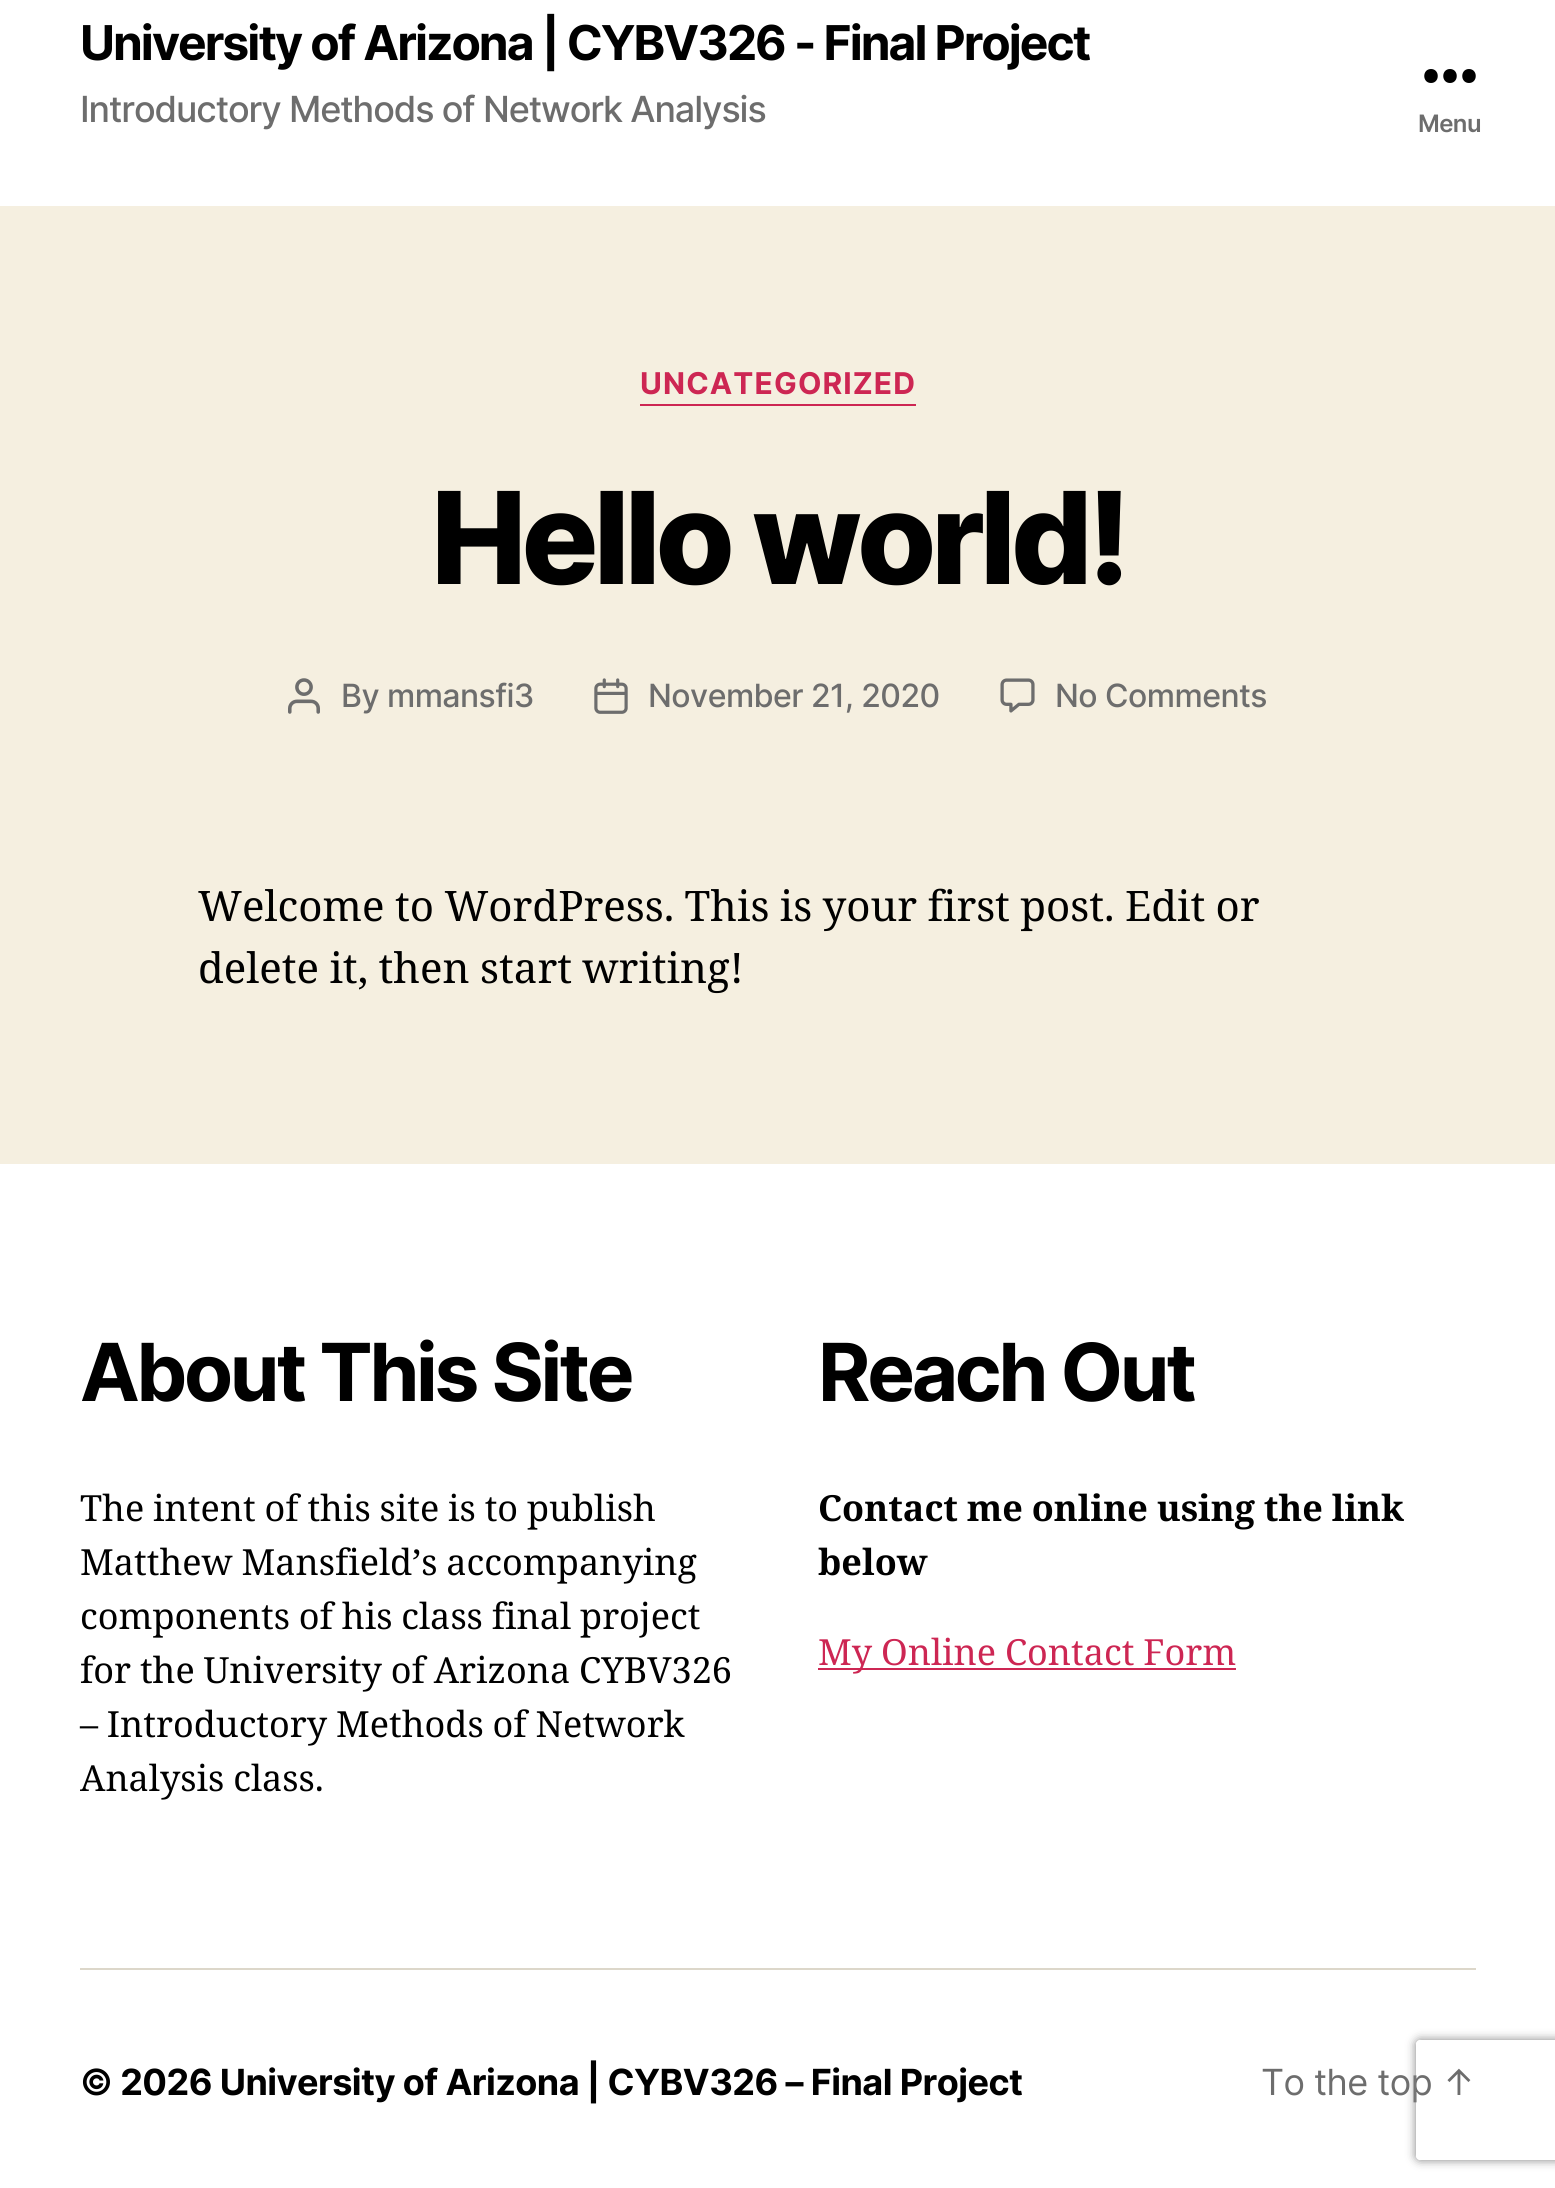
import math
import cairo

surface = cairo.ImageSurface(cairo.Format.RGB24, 1555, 2188)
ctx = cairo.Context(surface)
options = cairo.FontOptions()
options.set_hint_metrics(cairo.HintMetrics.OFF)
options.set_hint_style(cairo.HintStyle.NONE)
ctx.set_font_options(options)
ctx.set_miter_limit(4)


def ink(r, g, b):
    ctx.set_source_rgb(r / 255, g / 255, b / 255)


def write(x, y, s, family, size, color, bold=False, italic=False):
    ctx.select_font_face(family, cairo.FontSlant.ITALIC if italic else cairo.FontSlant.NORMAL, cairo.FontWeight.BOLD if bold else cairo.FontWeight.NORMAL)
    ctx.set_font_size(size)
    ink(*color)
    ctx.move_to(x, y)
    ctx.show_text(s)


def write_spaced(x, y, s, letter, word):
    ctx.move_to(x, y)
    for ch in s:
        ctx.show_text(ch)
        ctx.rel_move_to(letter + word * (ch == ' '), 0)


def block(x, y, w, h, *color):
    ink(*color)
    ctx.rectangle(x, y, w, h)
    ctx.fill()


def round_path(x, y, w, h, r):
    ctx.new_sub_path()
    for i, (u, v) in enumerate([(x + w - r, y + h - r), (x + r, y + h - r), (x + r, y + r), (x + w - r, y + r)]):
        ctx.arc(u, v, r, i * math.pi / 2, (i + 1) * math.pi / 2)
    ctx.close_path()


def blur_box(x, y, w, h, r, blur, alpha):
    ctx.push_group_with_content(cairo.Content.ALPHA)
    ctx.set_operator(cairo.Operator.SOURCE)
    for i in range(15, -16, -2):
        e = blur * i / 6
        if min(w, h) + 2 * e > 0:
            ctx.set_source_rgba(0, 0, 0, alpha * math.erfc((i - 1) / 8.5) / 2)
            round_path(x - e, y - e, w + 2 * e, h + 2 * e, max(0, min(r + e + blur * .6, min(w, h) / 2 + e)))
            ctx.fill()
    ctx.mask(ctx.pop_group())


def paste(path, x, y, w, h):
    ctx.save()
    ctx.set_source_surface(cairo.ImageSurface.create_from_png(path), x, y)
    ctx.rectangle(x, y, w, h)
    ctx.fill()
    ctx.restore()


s1 = dict(family="Noto Serif", size=36, color=(0, 0, 0), bold=True)

ink(245, 239, 224)
ctx.paint()
block(0, 0, 1555, 206, 255, 255, 255)
ctx.select_font_face("Inter", cairo.FontSlant.NORMAL, cairo.FontWeight.BOLD)
ctx.set_font_size(48)
ink(0, 0, 0)
write_spaced(80, 60, "University of Arizona | CYBV326 - Final Project", -2, 0)
ctx.select_font_face("Inter Medium")
ctx.set_font_size(36)
ink(109, 109, 109)
write_spaced(80, 122, "Introductory Methods of Network Analysis", -1.1, 0)
ink(0, 0, 0)
ctx.set_fill_rule(cairo.FillRule.EVEN_ODD)
ctx.new_path()
ctx.move_to(1431, 83)
ctx.curve_to(1422, 83, 1422, 69, 1431, 69)
ctx.curve_to(1440, 69, 1440, 83, 1431, 83)
ctx.close_path()
ctx.move_to(1450, 83)
ctx.curve_to(1441, 83, 1441, 69, 1450, 69)
ctx.curve_to(1459, 69, 1459, 83, 1450, 83)
ctx.close_path()
ctx.move_to(1469, 83)
ctx.curve_to(1460, 83, 1460, 69, 1469, 69)
ctx.curve_to(1478, 69, 1478, 83, 1469, 83)
ctx.close_path()
ctx.fill()
ctx.select_font_face("Inter SemiBold")
ctx.set_font_size(24)
ink(109, 109, 109)
write_spaced(1418, 132, "Menu", -0.55, 0)
block(640, 404, 276, 2, 205, 38, 83)
ctx.select_font_face("Inter", cairo.FontSlant.NORMAL, cairo.FontWeight.BOLD)
ctx.set_font_size(30)
write_spaced(640, 394, "UNCATEGORIZED", 1.1, 0)
ctx.select_font_face("Inter ExtraBold")
ctx.set_font_size(128)
ink(0, 0, 0)
write_spaced(431, 584, "Hello world!", -5.25, 0)
paste("pic1.png", 288, 678, 32, 36)
ctx.select_font_face("Inter Medium")
ctx.set_font_size(32)
ink(109, 109, 109)
write_spaced(341, 707, "By mmansfi3", -0.55, 0)
paste("pic2.png", 594, 678, 34, 36)
write_spaced(648, 707, "November 21, 2020", -0.55, 0)
paste("pic3.png", 1000, 678, 35, 35)
write_spaced(1055, 707, "No Comments", -0.55, 0)
ctx.select_font_face("Noto Serif")
ctx.set_font_size(42)
ink(0, 0, 0)
write_spaced(198, 921, "Welcome to WordPress. This is your first post. Edit or", 0, -0.5)
write_spaced(198, 983, "delete it, then start writing!", 0, -0.5)
block(0, 1164, 1555, 1024, 255, 255, 255)
block(80, 1968, 1396, 2, 220, 215, 202)
ctx.select_font_face("Inter", cairo.FontSlant.NORMAL, cairo.FontWeight.BOLD)
ctx.set_font_size(80)
ink(0, 0, 0)
write_spaced(80, 1401, "About This Site", -3.3, 0)
ctx.select_font_face("Noto Serif")
ctx.set_font_size(36)
write_spaced(80, 1521, "The intent of this site is to publish", 0, -0.5)
write_spaced(80, 1575, "Matthew Mansfield’s accompanying", 0, -0.5)
write_spaced(80, 1629, "components of his class final project", 0, -0.5)
write_spaced(80, 1683, "for the University of Arizona CYBV326", 0, -0.5)
write_spaced(80, 1737, "– Introductory Methods of Network", 0, -0.5)
write_spaced(80, 1791, "Analysis class.", 0, -0.5)
ctx.select_font_face("Inter", cairo.FontSlant.NORMAL, cairo.FontWeight.BOLD)
ctx.set_font_size(80)
write_spaced(818, 1401, "Reach Out", -3.3, 0)
ctx.select_font_face("Noto Serif", cairo.FontSlant.NORMAL, cairo.FontWeight.BOLD)
ctx.set_font_size(36)
write_spaced(818, 1521, "Contact me online using the link", 0, -0.5)
write(818, 1575, "below", **s1)
block(818, 1668, 418, 2, 205, 38, 83)
ctx.select_font_face("Noto Serif")
write_spaced(818, 1665, "My Online Contact Form", 0, -0.5)
ctx.select_font_face("Inter", cairo.FontSlant.NORMAL, cairo.FontWeight.BOLD)
ink(0, 0, 0)
write_spaced(80, 2095, "© 2026 University of Arizona | CYBV326 – Final Project", -0.55, 0)
ctx.select_font_face("Inter")
ink(109, 109, 109)
write_spaced(1261, 2095, "To the top ↑", -0.55, 0)
ctx.save()
ctx.new_path()
ctx.move_to(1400, 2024)
ctx.line_to(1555, 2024)
ctx.line_to(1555, 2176)
ctx.line_to(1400, 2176)
ctx.close_path()
ctx.move_to(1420, 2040)
ctx.line_to(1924, 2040)
ctx.curve_to(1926, 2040, 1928, 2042, 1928, 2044)
ctx.line_to(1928, 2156)
ctx.curve_to(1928, 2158, 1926, 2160, 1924, 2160)
ctx.line_to(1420, 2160)
ctx.curve_to(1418, 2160, 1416, 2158, 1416, 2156)
ctx.line_to(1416, 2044)
ctx.curve_to(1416, 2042, 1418, 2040, 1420, 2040)
ctx.close_path()
ctx.clip()
ink(128, 128, 128)
blur_box(1416, 2040, 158, 120, 4, 5, 1)
ctx.restore()
surface.write_to_png("screenshot.png")
